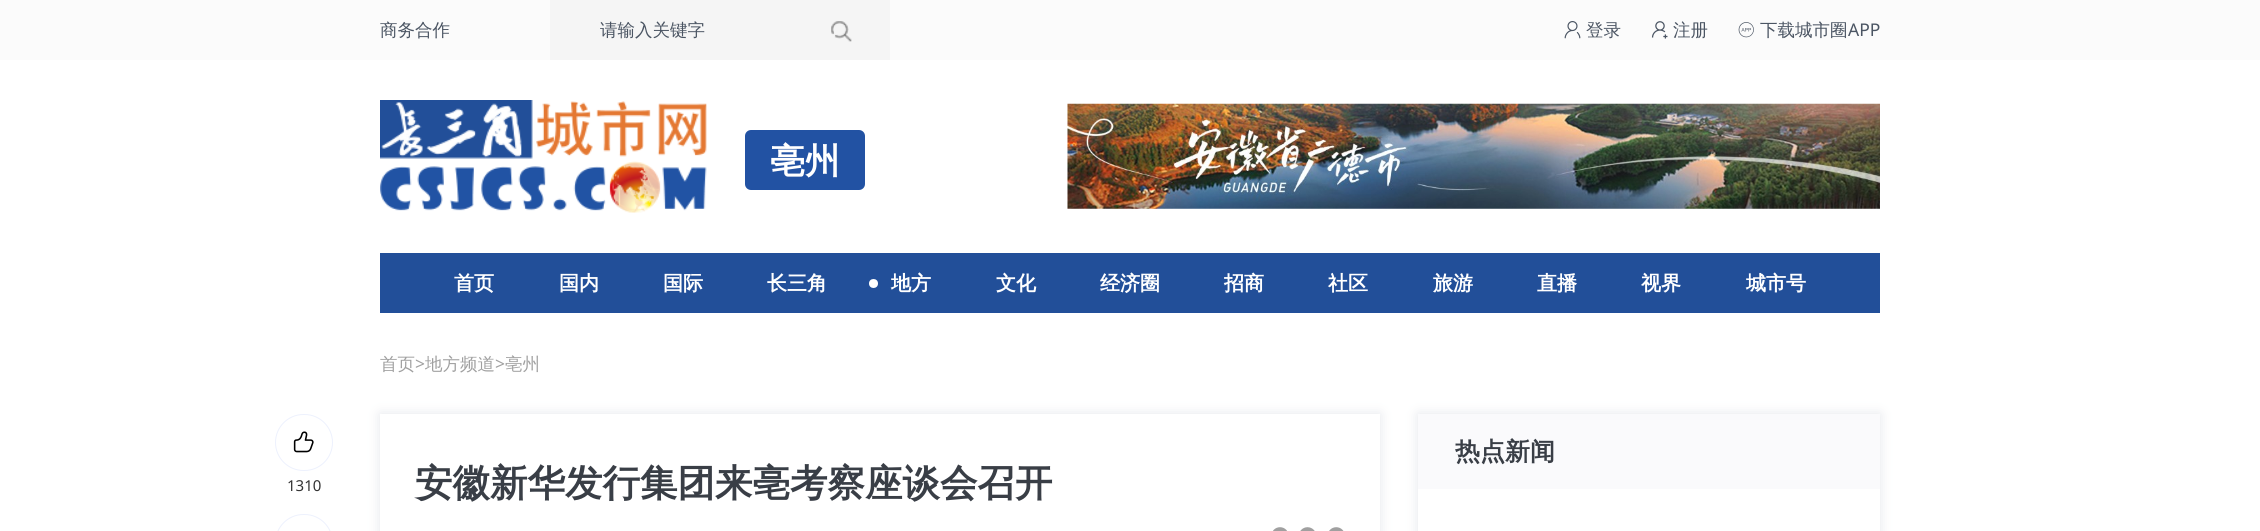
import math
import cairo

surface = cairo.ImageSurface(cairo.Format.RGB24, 2260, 531)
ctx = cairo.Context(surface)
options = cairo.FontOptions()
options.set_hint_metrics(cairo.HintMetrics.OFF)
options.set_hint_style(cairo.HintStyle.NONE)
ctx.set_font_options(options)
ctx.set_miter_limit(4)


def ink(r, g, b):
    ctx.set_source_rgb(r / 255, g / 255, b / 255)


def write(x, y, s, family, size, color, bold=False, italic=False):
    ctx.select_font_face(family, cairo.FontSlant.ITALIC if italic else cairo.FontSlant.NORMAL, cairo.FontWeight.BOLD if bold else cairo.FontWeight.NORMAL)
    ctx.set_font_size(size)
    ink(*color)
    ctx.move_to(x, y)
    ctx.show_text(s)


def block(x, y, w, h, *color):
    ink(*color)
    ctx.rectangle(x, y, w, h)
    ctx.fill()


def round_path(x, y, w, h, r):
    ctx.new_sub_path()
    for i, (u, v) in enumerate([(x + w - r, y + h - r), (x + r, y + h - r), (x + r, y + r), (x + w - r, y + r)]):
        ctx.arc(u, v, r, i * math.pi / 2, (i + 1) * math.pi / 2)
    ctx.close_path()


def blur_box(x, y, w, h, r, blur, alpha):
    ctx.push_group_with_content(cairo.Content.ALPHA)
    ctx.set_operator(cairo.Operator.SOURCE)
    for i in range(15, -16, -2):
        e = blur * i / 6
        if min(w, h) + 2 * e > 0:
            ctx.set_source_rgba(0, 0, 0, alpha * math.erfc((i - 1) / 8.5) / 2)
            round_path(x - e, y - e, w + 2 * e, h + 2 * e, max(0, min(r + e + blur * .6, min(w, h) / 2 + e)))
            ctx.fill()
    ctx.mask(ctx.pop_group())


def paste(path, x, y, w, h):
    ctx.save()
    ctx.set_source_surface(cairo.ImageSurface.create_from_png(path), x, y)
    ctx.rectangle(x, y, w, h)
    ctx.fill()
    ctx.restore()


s1 = dict(family="WenQuanYi Zen Hei Medium", size=17.5, color=(75, 85, 99))
s2 = dict(family="Noto Sans", size=17.5, color=(75, 85, 99))
s3 = dict(family="WenQuanYi Zen Hei", size=35, color=(255, 255, 255), bold=True)
s4 = dict(family="WenQuanYi Zen Hei", size=20, color=(255, 255, 255), bold=True)
s5 = dict(family="WenQuanYi Zen Hei Medium", size=17.5, color=(160, 160, 160))
s6 = dict(family="Noto Sans", size=17.5, color=(160, 160, 160))
s7 = dict(family="Noto Sans", size=15, color=(51, 51, 51))
s8 = dict(family="WenQuanYi Zen Hei", size=25, color=(57, 62, 70), bold=True)
s9 = dict(family="WenQuanYi Zen Hei", size=37.5, color=(57, 62, 70), bold=True)

ink(255, 255, 255)
ctx.paint()
block(0, 0, 2260, 60, 251, 251, 251)
write(380, 36, "商务合作", **s1)
block(550, 0, 340, 60, 245, 245, 245)
write(600, 36, "请输入关键字", **s1)
paste("pic1.png", 831, 21, 21, 21)
paste("pic2.png", 1564, 21, 17, 18)
write(1586, 36, "登录", **s1)
paste("pic3.png", 1651, 21, 17, 18)
write(1673, 36, "注册", **s1)
paste("pic4.png", 1738, 22, 16, 16)
write(1760, 36, "下载城市圈", **s1)
write(1848, 36, "APP", **s2)
paste("pic5.png", 380, 100, 327, 113)
ink(34, 82, 163)
round_path(745, 130, 120, 60, 6)
ctx.fill()
write(770, 173, "亳州", **s3)
paste("pic6.png", 1067, 103, 813, 106)
block(380, 253, 1500, 60, 34, 79, 153)
write(454, 290, "首页", **s4)
write(559, 290, "国内", **s4)
write(663, 290, "国际", **s4)
write(767, 290, "长三角", **s4)
ctx.new_path()
ctx.arc(873.5, 283.5, 4.5, 0, 2 * math.pi)
ctx.fill()
write(891, 290, "地方", **s4)
write(996, 290, "文化", **s4)
write(1100, 290, "经济圈", **s4)
write(1224, 290, "招商", **s4)
write(1328, 290, "社区", **s4)
write(1433, 290, "旅游", **s4)
write(1537, 290, "直播", **s4)
write(1641, 290, "视界", **s4)
write(1746, 290, "城市号", **s4)
write(380, 370, "首页", **s5)
write(415, 370, ">", **s6)
write(425, 370, "地方频道", **s5)
write(495, 370, ">", **s6)
write(505, 370, "亳州", **s5)
round_path(275.5, 414.5, 57, 56, 28)
ink(237, 241, 253)
ctx.set_line_width(1)
ctx.stroke()
paste("pic7.png", 293, 431, 21, 22)
write(287, 491, "1310", **s7)
round_path(275.5, 514.5, 57, 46, 28)
ink(237, 241, 253)
ctx.stroke()
ctx.save()
ctx.set_fill_rule(cairo.FillRule.EVEN_ODD)
ctx.new_path()
ctx.move_to(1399, 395)
ctx.line_to(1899, 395)
ctx.line_to(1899, 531)
ctx.line_to(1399, 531)
ctx.close_path()
ctx.move_to(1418, 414)
ctx.line_to(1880, 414)
ctx.line_to(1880, 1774)
ctx.line_to(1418, 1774)
ctx.close_path()
ctx.clip()
ink(229, 231, 235)
blur_box(1418, 414, 462, 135, 0, 6, 1)
ctx.restore()
block(1418, 414, 462, 75, 250, 250, 252)
write(1455, 460, "热点新闻", **s8)
ctx.save()
ctx.set_fill_rule(cairo.FillRule.EVEN_ODD)
ctx.new_path()
ctx.move_to(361, 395)
ctx.line_to(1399, 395)
ctx.line_to(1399, 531)
ctx.line_to(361, 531)
ctx.close_path()
ctx.move_to(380, 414)
ctx.line_to(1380, 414)
ctx.line_to(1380, 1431)
ctx.line_to(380, 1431)
ctx.close_path()
ctx.clip()
ink(229, 231, 235)
blur_box(380, 414, 1000, 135, 0, 6, 1)
ctx.restore()
write(415, 496, "安徽新华发行集团来亳考察座谈会召开", **s9)
paste("pic8.png", 1273, 527, 14, 4)
paste("pic9.png", 1300, 527, 15, 4)
paste("pic10.png", 1329, 527, 15, 4)
surface.write_to_png("screenshot.png")
